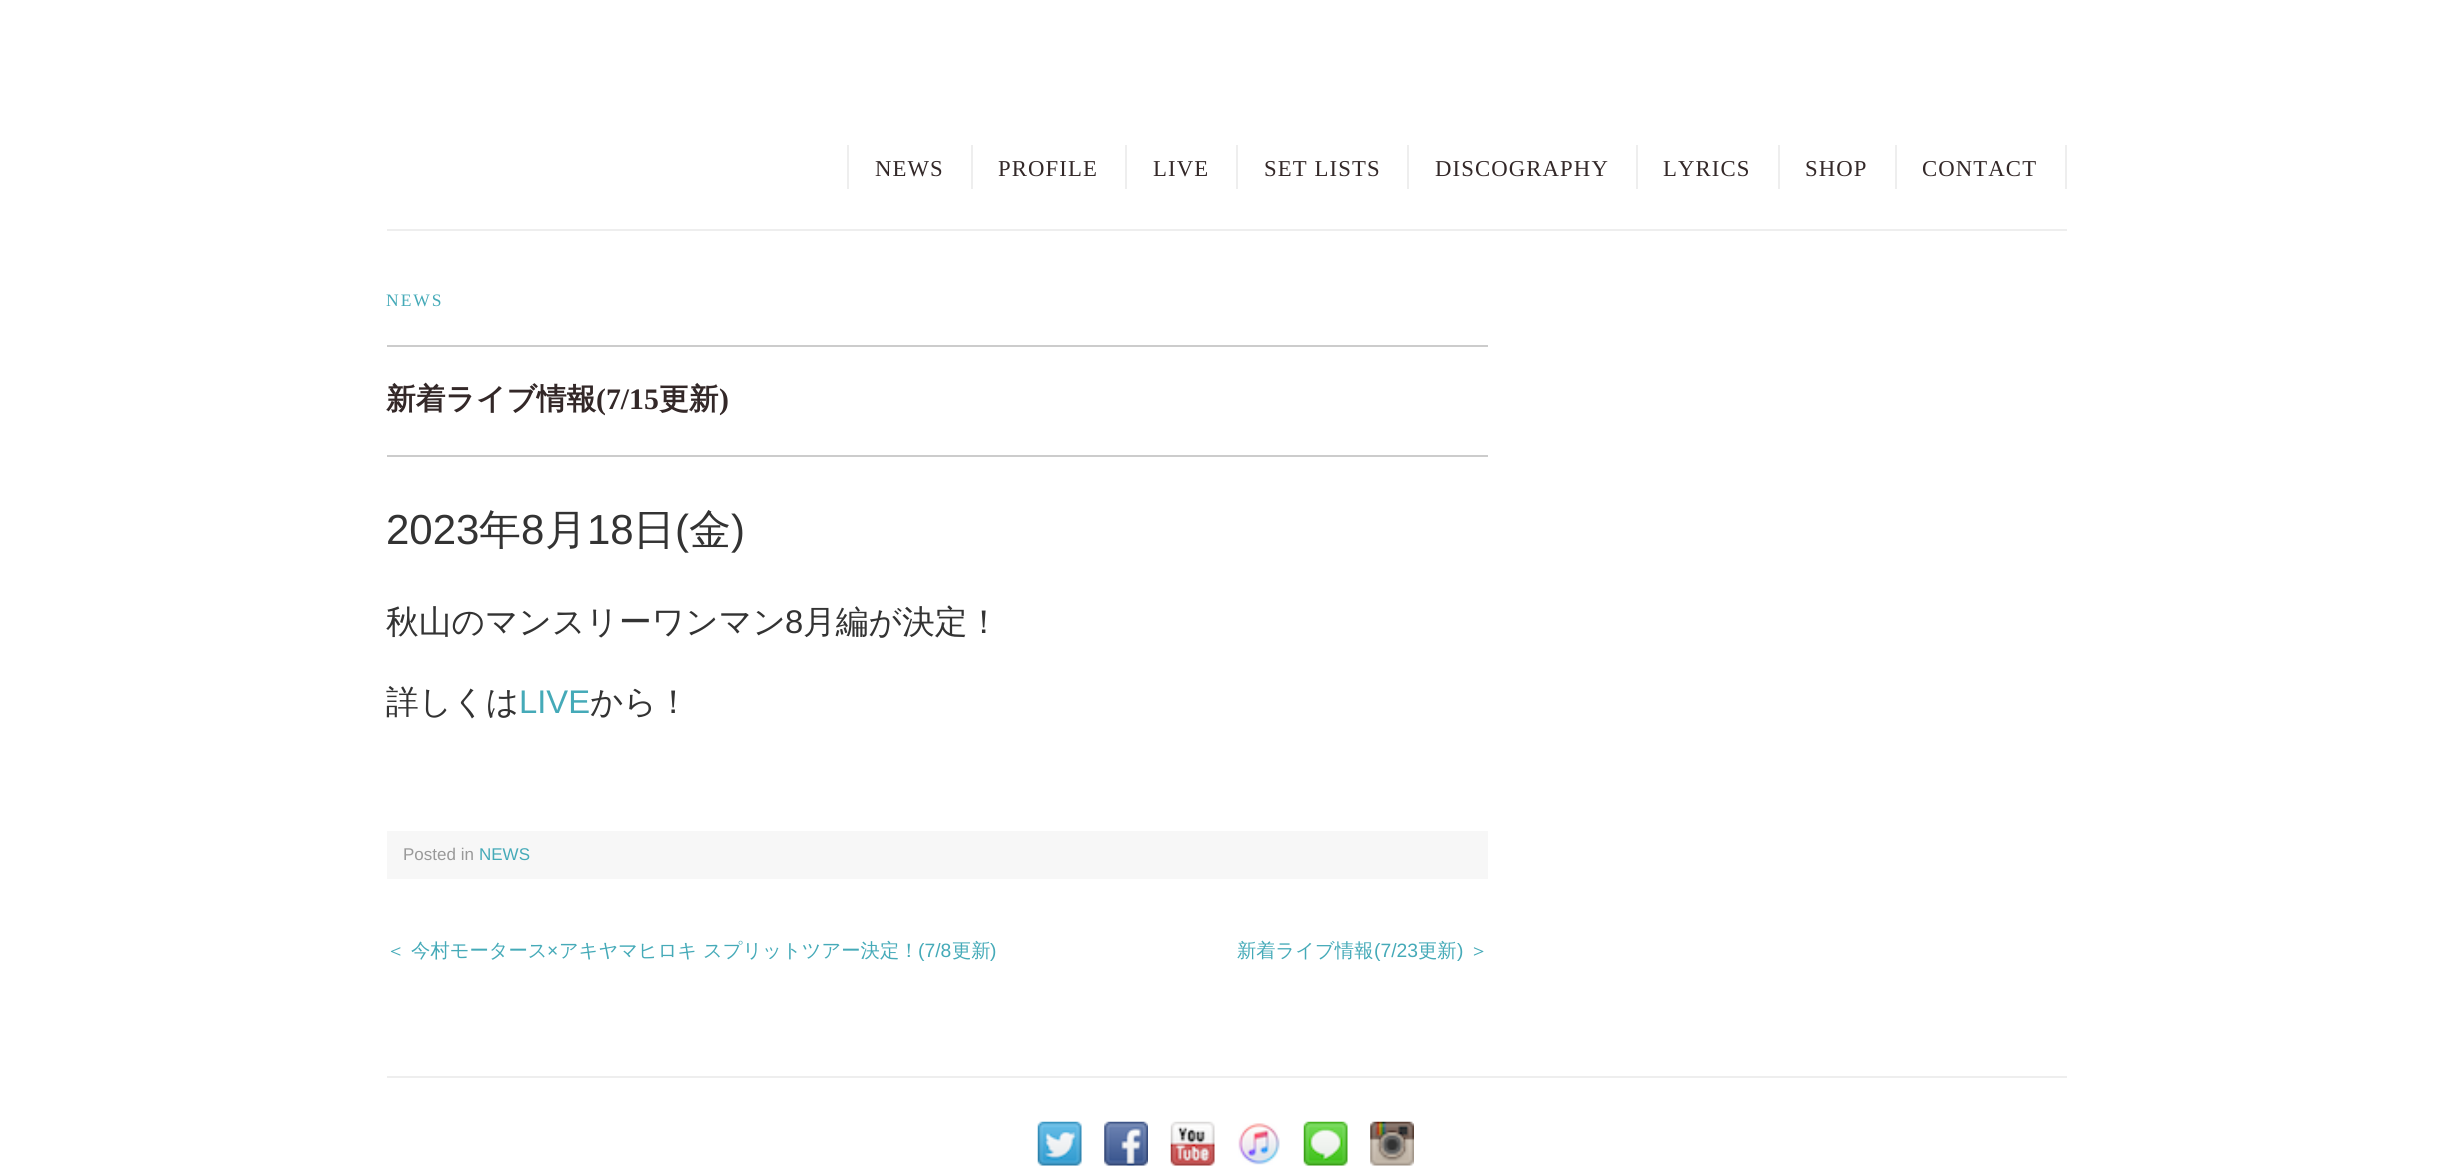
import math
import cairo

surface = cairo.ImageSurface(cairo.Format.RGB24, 2451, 1171)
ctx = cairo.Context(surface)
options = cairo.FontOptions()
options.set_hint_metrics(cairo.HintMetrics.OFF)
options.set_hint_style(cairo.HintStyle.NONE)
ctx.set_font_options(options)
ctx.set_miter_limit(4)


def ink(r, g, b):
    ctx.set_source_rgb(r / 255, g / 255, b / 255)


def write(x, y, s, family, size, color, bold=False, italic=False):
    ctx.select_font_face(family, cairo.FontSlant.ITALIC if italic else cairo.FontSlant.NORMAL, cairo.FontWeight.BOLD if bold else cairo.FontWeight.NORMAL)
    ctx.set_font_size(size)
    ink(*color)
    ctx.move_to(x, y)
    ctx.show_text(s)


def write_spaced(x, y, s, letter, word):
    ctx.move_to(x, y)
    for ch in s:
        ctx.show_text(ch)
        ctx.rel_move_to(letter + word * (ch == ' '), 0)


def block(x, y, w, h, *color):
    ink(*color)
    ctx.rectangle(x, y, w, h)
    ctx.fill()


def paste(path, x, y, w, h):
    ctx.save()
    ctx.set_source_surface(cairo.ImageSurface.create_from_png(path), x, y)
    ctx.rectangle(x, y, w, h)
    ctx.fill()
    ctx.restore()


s1 = dict(family="WenQuanYi Zen Hei", size=29.75, color=(51, 40, 40), bold=True)
s2 = dict(family="Liberation Serif", size=29.75, color=(51, 40, 40), bold=True)
s3 = dict(family="Liberation Sans", size=42, color=(51, 51, 51))
s4 = dict(family="WenQuanYi Zen Hei Medium", size=42, color=(51, 51, 51))
s5 = dict(family="WenQuanYi Zen Hei Medium", size=32.75, color=(51, 51, 51))
s6 = dict(family="Liberation Sans", size=32.75, color=(51, 51, 51))
s7 = dict(family="Liberation Sans", size=32.75, color=(69, 170, 184))
s8 = dict(family="Liberation Sans", size=17, color=(153, 153, 153))
s9 = dict(family="Liberation Sans", size=17, color=(69, 170, 184))
s10 = dict(family="WenQuanYi Zen Hei Medium", size=19.3, color=(69, 170, 184))
s11 = dict(family="Liberation Sans", size=19.3, color=(69, 170, 184))

ink(255, 255, 255)
ctx.paint()
block(387, 229, 1680, 2, 238, 238, 238)
ctx.select_font_face("Liberation Serif")
ctx.set_font_size(22.75)
ink(51, 40, 40)
write_spaced(875, 176, "NEWS", 1.1, 0)
block(971, 145, 2, 44, 238, 238, 238)
block(847, 145, 2, 44, 238, 238, 238)
ink(51, 40, 40)
write_spaced(998, 176, "PROFILE", 1.1, 0)
block(1125, 145, 2, 44, 238, 238, 238)
ink(51, 40, 40)
write_spaced(1153, 176, "LIVE", 1.1, 0)
block(1236, 145, 2, 44, 238, 238, 238)
ink(51, 40, 40)
write_spaced(1264, 176, "SET LISTS", 1.1, 0)
block(1407, 145, 2, 44, 238, 238, 238)
ink(51, 40, 40)
write_spaced(1435, 176, "DISCOGRAPHY", 1.1, 0)
block(1636, 145, 2, 44, 238, 238, 238)
ink(51, 40, 40)
write_spaced(1663, 176, "LYRICS", 1.1, 0)
block(1778, 145, 2, 44, 238, 238, 238)
ink(51, 40, 40)
write_spaced(1805, 176, "SHOP", 1.1, 0)
block(1895, 145, 2, 44, 238, 238, 238)
ink(51, 40, 40)
write_spaced(1922, 176, "CONTACT", 1.1, 0)
block(2065, 145, 2, 44, 238, 238, 238)
ctx.set_font_size(17.5)
ink(69, 170, 184)
write_spaced(386, 306, "NEWS", 2, 0)
block(387, 345, 1101, 2, 204, 204, 204)
block(387, 455, 1101, 2, 204, 204, 204)
write(386, 409, "新着ライブ情報", **s1)
write(596, 409, "(7/15", **s2)
write(659, 409, "更新", **s1)
write(719, 409, ")", **s2)
write(386, 544, "2023", **s3)
write(479, 544, "年", **s4)
write(521, 544, "8", **s3)
write(545, 544, "月", **s4)
write(587, 544, "18", **s3)
write(633, 544, "日", **s4)
write(675, 544, "(", **s3)
write(689, 544, "金", **s4)
write(731, 544, ")", **s3)
write(386, 633, "秋山のマンスリーワンマン", **s5)
write(785, 633, "8", **s6)
write(803, 633, "月編が決定！", **s5)
write(386, 713, "詳しくは", **s5)
write(519, 713, "LIVE", **s7)
write(590, 713, "から！", **s5)
block(387, 831, 1101, 48, 247, 247, 247)
write(403, 860, "Posted in", **s8)
write(479, 860, "NEWS", **s9)
write(386, 957, "＜ 今村モータース", **s10)
write(547, 957, "×", **s11)
write(559, 957, "アキヤマヒロキ スプリットツアー決定！", **s10)
write(918, 957, "(7/8", **s11)
write(952, 957, "更新", **s10)
write(990, 957, ")", **s11)
write(1237, 957, "新着ライブ情報", **s10)
write(1374, 957, "(7/23", **s11)
write(1418, 957, "更新", **s10)
write(1457, 957, ")", **s11)
write(1469, 957, "＞", **s10)
block(387, 1076, 1680, 2, 238, 238, 238)
paste("pic1.png", 1037, 1121, 45, 45)
paste("pic2.png", 1104, 1121, 44, 45)
paste("pic3.png", 1170, 1121, 45, 45)
paste("pic4.png", 1238, 1123, 42, 42)
paste("pic5.png", 1303, 1121, 45, 45)
paste("pic6.png", 1370, 1121, 44, 45)
surface.write_to_png("screenshot.png")
